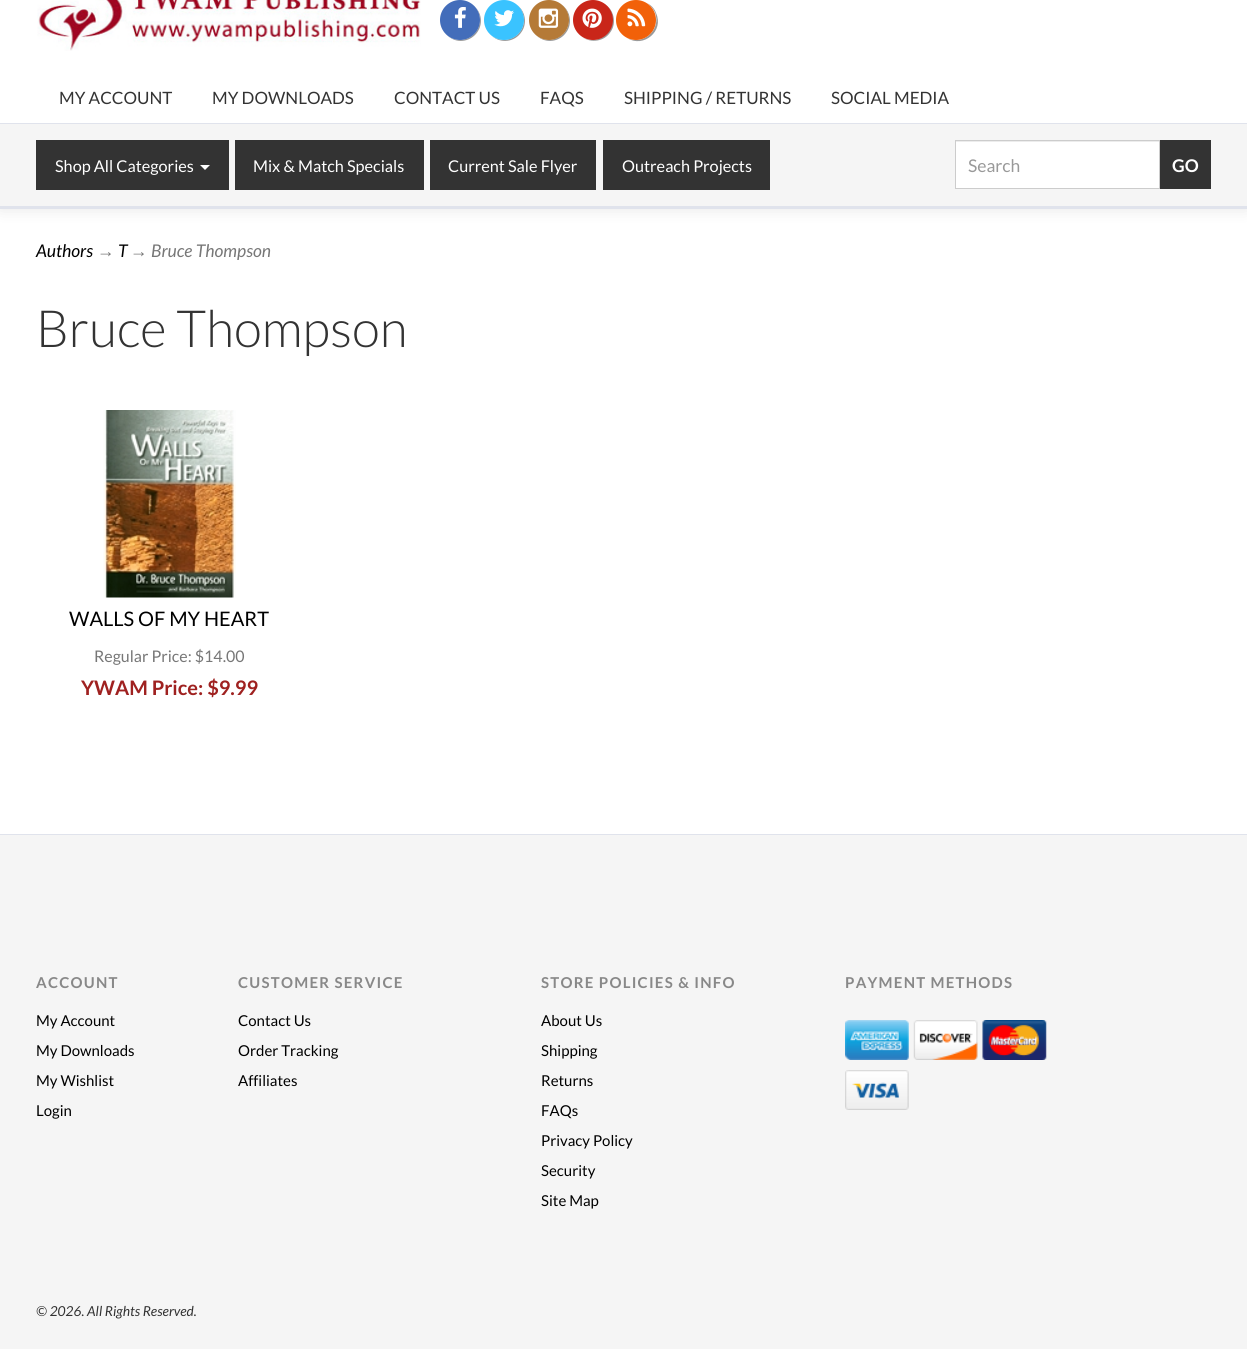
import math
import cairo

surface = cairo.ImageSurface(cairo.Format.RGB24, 1247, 1349)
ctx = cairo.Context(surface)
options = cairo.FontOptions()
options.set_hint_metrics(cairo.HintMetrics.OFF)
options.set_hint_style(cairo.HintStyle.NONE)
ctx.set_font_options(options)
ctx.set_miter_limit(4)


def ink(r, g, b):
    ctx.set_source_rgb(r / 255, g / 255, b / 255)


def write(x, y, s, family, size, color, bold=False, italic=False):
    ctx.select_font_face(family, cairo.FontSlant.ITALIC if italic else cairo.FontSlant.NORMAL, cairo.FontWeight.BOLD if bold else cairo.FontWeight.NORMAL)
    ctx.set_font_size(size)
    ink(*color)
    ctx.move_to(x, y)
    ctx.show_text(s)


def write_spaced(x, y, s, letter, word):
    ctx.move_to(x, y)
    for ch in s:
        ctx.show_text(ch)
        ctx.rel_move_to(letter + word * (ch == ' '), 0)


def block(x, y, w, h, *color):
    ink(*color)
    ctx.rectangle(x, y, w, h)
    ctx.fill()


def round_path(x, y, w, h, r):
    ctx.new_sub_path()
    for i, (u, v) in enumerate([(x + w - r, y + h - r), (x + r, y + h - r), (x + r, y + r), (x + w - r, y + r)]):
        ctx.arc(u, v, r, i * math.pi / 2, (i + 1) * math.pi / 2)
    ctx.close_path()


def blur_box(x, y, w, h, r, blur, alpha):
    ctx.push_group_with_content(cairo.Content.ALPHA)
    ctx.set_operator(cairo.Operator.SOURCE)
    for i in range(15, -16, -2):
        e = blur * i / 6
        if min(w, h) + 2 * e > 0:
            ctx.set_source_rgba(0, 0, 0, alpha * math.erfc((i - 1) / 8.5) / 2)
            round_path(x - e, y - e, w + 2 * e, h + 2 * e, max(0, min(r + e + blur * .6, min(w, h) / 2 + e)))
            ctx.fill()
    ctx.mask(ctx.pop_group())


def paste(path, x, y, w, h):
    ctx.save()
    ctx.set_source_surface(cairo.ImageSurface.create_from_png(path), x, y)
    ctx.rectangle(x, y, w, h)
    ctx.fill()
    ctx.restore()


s1 = dict(family="Lato", size=17, color=(51, 51, 51))
s2 = dict(family="Lato", size=16.25, color=(255, 255, 255))
s3 = dict(family="Lato", size=17.5, color=(153, 153, 153))
s4 = dict(family="Lato", size=17.5, color=(255, 255, 255), bold=True)
s5 = dict(family="Lato", size=17.5, color=(0, 0, 0), italic=True)
s6 = dict(family="Liberation Sans", size=17.5, color=(119, 119, 119), italic=True)
s7 = dict(family="Lato", size=17.5, color=(119, 119, 119), italic=True)
s8 = dict(family="Lato Light", size=51.25, color=(51, 51, 51))
s9 = dict(family="Lato", size=20, color=(0, 0, 0))
s10 = dict(family="Lato", size=16, color=(119, 119, 119))
s11 = dict(family="Lato", size=20, color=(159, 33, 32), bold=True)
s12 = dict(family="Lato", size=15, color=(0, 0, 0))
s13 = dict(family="Lato", size=13.75, color=(51, 51, 51), italic=True)

ink(255, 255, 255)
ctx.paint()
ink(0, 0, 0)
blur_box(0, -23, 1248, 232, 0, 7.5, 0.1)
block(0, 0, 1247, 123, 255, 255, 255)
paste("pic1.png", 37, 0, 384, 51)
ink(153, 153, 153)
ctx.new_path()
ctx.move_to(446.5, 34.5)
ctx.curve_to(454, 43, 467, 43, 475, 35)
ctx.curve_to(483, 27, 483, 14, 474.5, 6.5)
ctx.curve_to(482, 14, 481.5, 26.5, 474, 34)
ctx.curve_to(466.5, 41.5, 454, 42, 446.5, 34.5)
ctx.close_path()
ctx.fill()
ink(67, 109, 186)
ctx.arc(460, 20, 20, 0, 2 * math.pi)
ctx.fill()
paste("pic2.png", 454, 7, 12, 21)
ink(153, 153, 153)
ctx.new_path()
ctx.move_to(492, 36)
ctx.curve_to(501, 44, 515, 42, 521.5, 32)
ctx.curve_to(527.5, 23.5, 525.5, 11, 517, 5)
ctx.curve_to(524.5, 11.5, 526, 23, 520.5, 31)
ctx.curve_to(514, 40.5, 501, 42.5, 492, 36)
ctx.close_path()
ctx.fill()
ink(58, 195, 255)
ctx.arc(504, 20, 20, 0, 2 * math.pi)
ctx.fill()
paste("pic3.png", 494, 10, 20, 17)
ink(153, 153, 153)
ctx.new_path()
ctx.move_to(537, 36)
ctx.curve_to(546, 44, 560, 42, 566.5, 32)
ctx.curve_to(572.5, 23.5, 570.5, 11, 562, 5)
ctx.curve_to(569.5, 11.5, 571, 23, 565.5, 31)
ctx.curve_to(559, 40.5, 546, 42.5, 537, 36)
ctx.close_path()
ctx.fill()
ink(181, 122, 55)
ctx.arc(549, 20, 20, 0, 2 * math.pi)
ctx.fill()
paste("pic4.png", 538, 8, 21, 20)
ink(153, 153, 153)
ctx.new_path()
ctx.move_to(582, 37)
ctx.curve_to(591, 43.5, 604.5, 41.5, 610.5, 32)
ctx.curve_to(617, 23, 614, 9.5, 604.5, 4)
ctx.curve_to(613, 10, 615, 22.5, 609, 31)
ctx.curve_to(603, 40, 591, 42.5, 582, 37)
ctx.close_path()
ctx.fill()
ink(201, 38, 25)
ctx.arc(593, 20, 20, 0, 2 * math.pi)
ctx.fill()
paste("pic5.png", 582, 8, 20, 20)
ink(153, 153, 153)
ctx.new_path()
ctx.move_to(627, 38)
ctx.curve_to(643.5, 48.5, 664.5, 31, 656, 13)
ctx.curve_to(654.5, 8.5, 651, 5, 647, 3)
ctx.curve_to(650.5, 5.5, 653, 8.5, 655, 12.5)
ctx.curve_to(661.5, 29.5, 643.5, 46, 627, 38)
ctx.close_path()
ctx.fill()
ink(242, 97, 9)
ctx.arc(636, 20, 20, 0, 2 * math.pi)
ctx.fill()
paste("pic6.png", 627, 8, 19, 19)
write(59, 104, "MY ACCOUNT", **s1)
write(212, 104, "MY DOWNLOADS", **s1)
write(394, 104, "CONTACT US", **s1)
write(540, 104, "FAQS", **s1)
write(624, 104, "SHIPPING / RETURNS", **s1)
write(831, 104, "SOCIAL MEDIA", **s1)
block(0, 124, 1247, 82, 245, 245, 245)
block(0, 123, 1247, 1, 224, 227, 236)
block(0, 206, 1247, 3, 224, 227, 236)
block(36, 140, 193, 50, 51, 51, 51)
write(55, 172, "Shop All Categories", **s2)
ctx.new_path()
ctx.move_to(200, 165)
ctx.line_to(210, 165)
ctx.line_to(205, 170)
ctx.close_path()
ctx.fill()
block(235, 140, 189, 50, 51, 51, 51)
write(253, 172, "Mix & Match Specials", **s2)
block(430, 140, 166, 50, 51, 51, 51)
write(448, 172, "Current Sale Flyer", **s2)
block(603, 140, 167, 50, 51, 51, 51)
write(622, 172, "Outreach Projects", **s2)
block(956, 142, 203, 46, 255, 255, 255)
block(956, 141, 203, 1, 236, 236, 236)
ctx.rectangle(955.5, 140.5, 204, 48)
ink(204, 204, 204)
ctx.set_line_width(1)
ctx.stroke()
write(968, 172, "Search", **s3)
block(1160, 140, 51, 49, 51, 51, 51)
write(1172, 172, "GO", **s4)
write(36, 257, "Authors", **s5)
write(97, 257, "→", **s6)
write(118, 257, "T", **s5)
write(130, 257, "→", **s6)
write(151, 257, "Bruce Thompson", **s7)
write(36, 347, "Bruce Thompson", **s8)
paste("pic7.png", 103, 410, 133, 188)
write(69, 626, "WALLS OF MY HEART", **s9)
write(94, 662, "Regular Price: $14.00", **s10)
write(81, 695, "YWAM Price: $9.99", **s11)
block(0, 835, 1247, 514, 245, 245, 245)
block(0, 834, 1247, 1, 224, 227, 236)
ctx.set_font_size(15)
ink(136, 136, 136)
write_spaced(36, 988, "ACCOUNT", 1.25, 0)
write(36, 1026, "My Account", **s12)
write(36, 1056, "My Downloads", **s12)
write(36, 1086, "My Wishlist", **s12)
write(36, 1116, "Login", **s12)
ctx.select_font_face("Lato", cairo.FontSlant.NORMAL, cairo.FontWeight.BOLD)
ink(136, 136, 136)
write_spaced(238, 988, "CUSTOMER SERVICE", 1.25, 0)
write(238, 1026, "Contact Us", **s12)
write(238, 1056, "Order Tracking", **s12)
write(238, 1086, "Affiliates", **s12)
ctx.select_font_face("Lato", cairo.FontSlant.NORMAL, cairo.FontWeight.BOLD)
ink(136, 136, 136)
write_spaced(541, 988, "STORE POLICIES & INFO", 1.25, 0)
write(541, 1026, "About Us", **s12)
write(541, 1056, "Shipping", **s12)
write(541, 1086, "Returns", **s12)
write(541, 1116, "FAQs", **s12)
write(541, 1146, "Privacy Policy", **s12)
write(541, 1176, "Security", **s12)
write(541, 1206, "Site Map", **s12)
ctx.select_font_face("Lato", cairo.FontSlant.NORMAL, cairo.FontWeight.BOLD)
ink(136, 136, 136)
write_spaced(845, 988, "PAYMENT METHODS", 1.25, 0)
paste("pic8.png", 845, 1020, 64, 40)
paste("pic9.png", 913, 1020, 65, 40)
paste("pic10.png", 982, 1020, 65, 40)
paste("pic11.png", 845, 1070, 64, 40)
write(36, 1316, "© 2026. All Rights Reserved.", **s13)
surface.write_to_png("screenshot.png")
